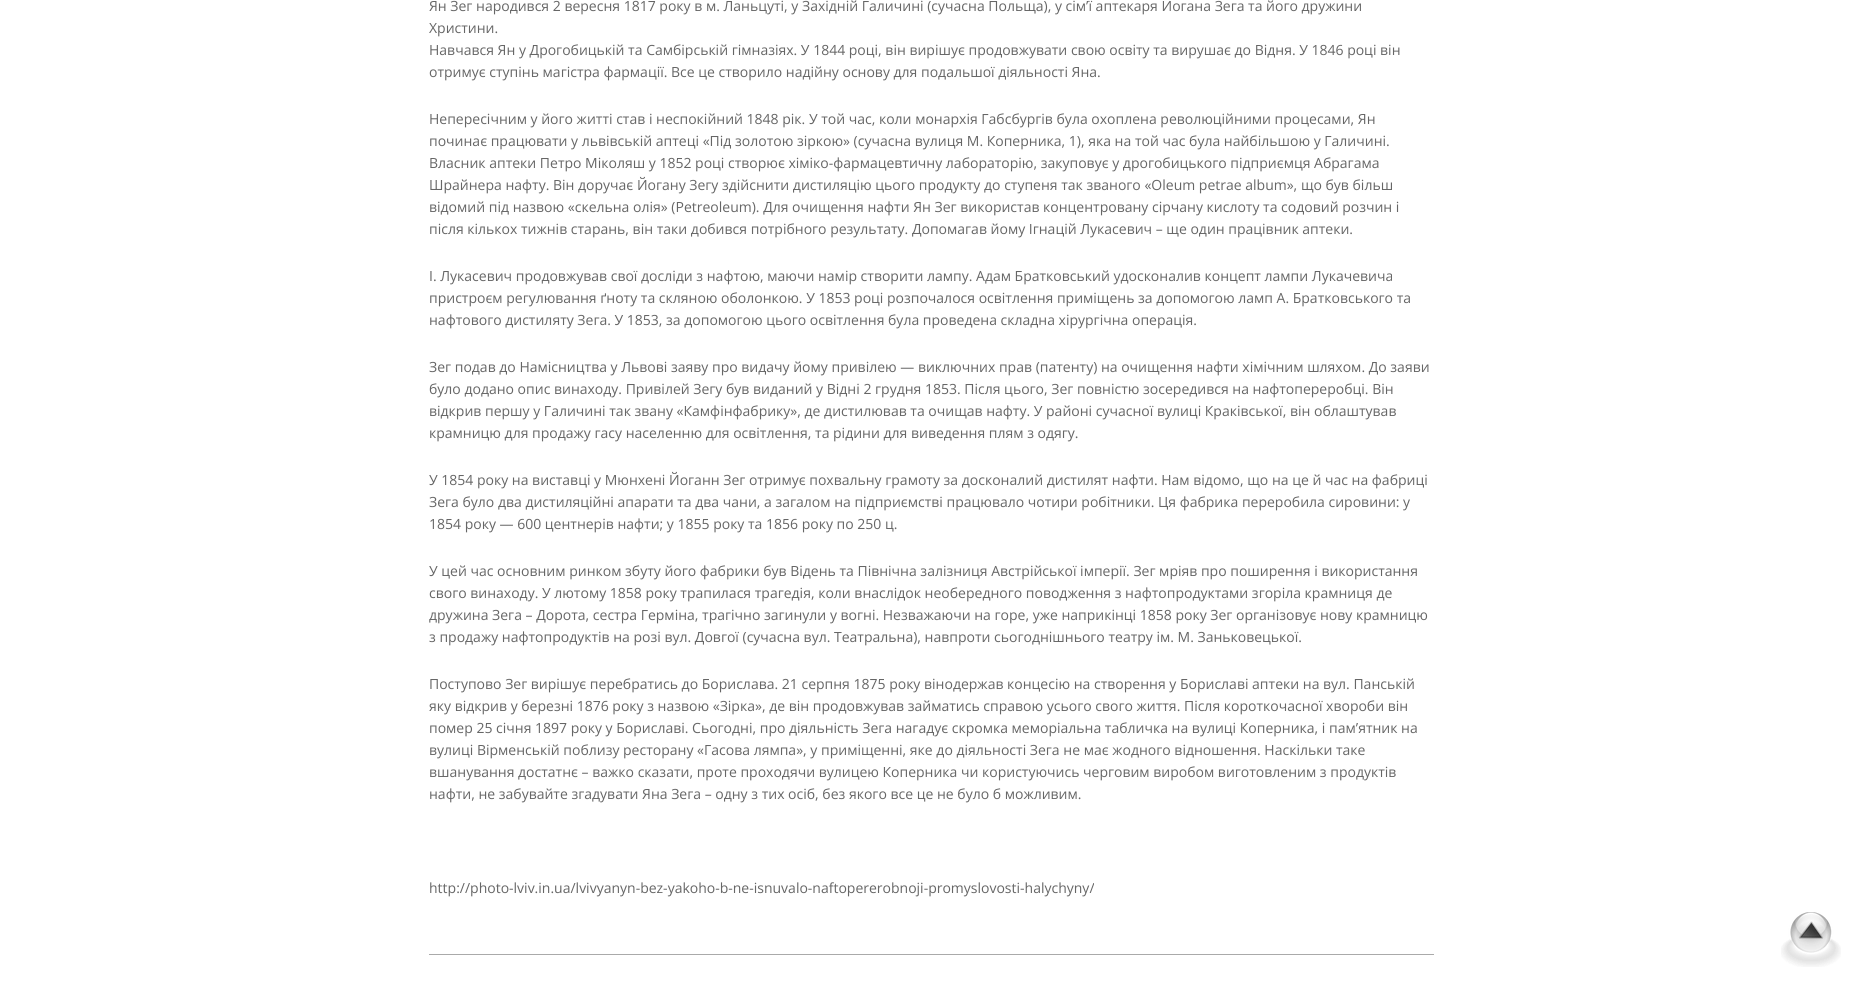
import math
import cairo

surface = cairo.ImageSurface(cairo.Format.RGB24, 1863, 989)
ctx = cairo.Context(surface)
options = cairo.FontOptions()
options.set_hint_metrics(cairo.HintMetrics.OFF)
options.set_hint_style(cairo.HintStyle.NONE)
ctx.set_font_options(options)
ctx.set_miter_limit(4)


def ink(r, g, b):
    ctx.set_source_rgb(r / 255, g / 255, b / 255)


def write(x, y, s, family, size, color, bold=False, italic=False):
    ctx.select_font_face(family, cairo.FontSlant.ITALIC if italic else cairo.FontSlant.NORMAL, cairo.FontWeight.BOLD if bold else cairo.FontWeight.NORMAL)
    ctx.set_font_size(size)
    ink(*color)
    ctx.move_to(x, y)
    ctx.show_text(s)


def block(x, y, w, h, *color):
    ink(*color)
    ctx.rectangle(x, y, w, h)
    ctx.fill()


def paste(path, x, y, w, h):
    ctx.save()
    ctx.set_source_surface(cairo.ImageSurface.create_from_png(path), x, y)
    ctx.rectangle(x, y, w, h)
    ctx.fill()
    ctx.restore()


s1 = dict(family="Open Sans", size=14, color=(102, 102, 102))

ink(255, 255, 255)
ctx.paint()
block(429, 954, 1005, 1, 170, 170, 170)
write(429, 11, "Ян Зег народився 2 вересня 1817 року в м. Ланьцуті, у Західній Галичині (сучасна Польща), у сім’ї аптекаря Йогана Зега та його дружини", **s1)
write(429, 33, "Христини.", **s1)
write(429, 55, "Навчався Ян у Дрогобицькій та Самбірській гімназіях. У 1844 році, він вирішує продовжувати свою освіту та вирушає до Відня. У 1846 році він", **s1)
write(429, 77, "отримує ступінь магістра фармації. Все це створило надійну основу для подальшої діяльності Яна.", **s1)
write(429, 124, "Непересічним у його житті став і неспокійний 1848 рік. У той час, коли монархія Габсбургів була охоплена революційними процесами, Ян", **s1)
write(429, 146, "починає працювати у львівській аптеці «Під золотою зіркою» (сучасна вулиця М. Коперника, 1), яка на той час була найбільшою у Галичині.", **s1)
write(429, 168, "Власник аптеки Петро Міколяш у 1852 році створює хіміко-фармацевтичну лабораторію, закуповує у дрогобицького підприємця Абрагама", **s1)
write(429, 190, "Шрайнера нафту. Він доручає Йогану Зегу здійснити дистиляцію цього продукту до ступеня так званого «Oleum petrae album», що був більш", **s1)
write(429, 212, "відомий під назвою «скельна олія» (Petreoleum). Для очищення нафти Ян Зег використав концентровану сірчану кислоту та содовий розчин і", **s1)
write(429, 234, "після кількох тижнів старань, він таки добився потрібного результату. Допомагав йому Ігнацій Лукасевич – ще один працівник аптеки.", **s1)
write(429, 281, "І. Лукасевич продовжував свої досліди з нафтою, маючи намір створити лампу. Адам Братковський удосконалив концепт лампи Лукачевича", **s1)
write(429, 303, "пристроєм регулювання ґноту та скляною оболонкою. У 1853 році розпочалося освітлення приміщень за допомогою ламп А. Братковського та", **s1)
write(429, 325, "нафтового дистиляту Зега. У 1853, за допомогою цього освітлення була проведена складна хірургічна операція.", **s1)
write(429, 372, "Зег подав до Намісництва у Львові заяву про видачу йому привілею — виключних прав (патенту) на очищення нафти хімічним шляхом. До заяви", **s1)
write(429, 394, "було додано опис винаходу. Привілей Зегу був виданий у Відні 2 грудня 1853. Після цього, Зег повністю зосередився на нафтопереробці. Він", **s1)
write(429, 416, "відкрив першу у Галичині так звану «Камфінфабрику», де дистилював та очищав нафту. У районі сучасної вулиці Краківської, він облаштував", **s1)
write(429, 438, "крамницю для продажу гасу населенню для освітлення, та рідини для виведення плям з одягу.", **s1)
write(429, 485, "У 1854 року на виставці у Мюнхені Йоганн Зег отримує похвальну грамоту за досконалий дистилят нафти. Нам відомо, що на це й час на фабриці", **s1)
write(429, 507, "Зега було два дистиляційні апарати та два чани, а загалом на підприємстві працювало чотири робітники. Ця фабрика переробила сировини: у", **s1)
write(429, 529, "1854 року — 600 центнерів нафти; у 1855 року та 1856 року по 250 ц.", **s1)
write(429, 576, "У цей час основним ринком збуту його фабрики був Відень та Північна залізниця Австрійської імперії. Зег мріяв про поширення і використання", **s1)
write(429, 598, "свого винаходу. У лютому 1858 року трапилася трагедія, коли внаслідок необередного поводження з нафтопродуктами згоріла крамниця де", **s1)
write(429, 620, "дружина Зега – Дорота, сестра Герміна, трагічно загинули у вогні. Незважаючи на горе, уже наприкінці 1858 року Зег організовує нову крамницю", **s1)
write(429, 642, "з продажу нафтопродуктів на розі вул. Довгої (сучасна вул. Театральна), навпроти сьогоднішнього театру ім. М. Заньковецької.", **s1)
write(429, 689, "Поступово Зег вирішує перебратись до Борислава. 21 серпня 1875 року вінодержав концесію на створення у Бориславі аптеки на вул. Панській", **s1)
write(429, 711, "яку відкрив у березні 1876 року з назвою «Зірка», де він продовжував займатись справою усього свого життя. Після короткочасної хвороби він", **s1)
write(429, 733, "помер 25 січня 1897 року у Бориславі. Сьогодні, про діяльність Зега нагадує скромка меморіальна табличка на вулиці Коперника, і пам’ятник на", **s1)
write(429, 755, "вулиці Вірменській поблизу ресторану «Гасова лямпа», у приміщенні, яке до діяльності Зега не має жодного відношення. Наскільки таке", **s1)
write(429, 777, "вшанування достатнє – важко сказати, проте проходячи вулицею Коперника чи користуючись черговим виробом виготовленим з продуктів", **s1)
write(429, 799, "нафти, не забувайте згадувати Яна Зега – одну з тих осіб, без якого все це не було б можливим.", **s1)
write(429, 893, "http://photo-lviv.in.ua/lvivyanyn-bez-yakoho-b-ne-isnuvalo-naftopererobnoji-promyslovosti-halychyny/", **s1)
paste("pic1.png", 1781, 912, 60, 55)
surface.write_to_png("screenshot.png")
